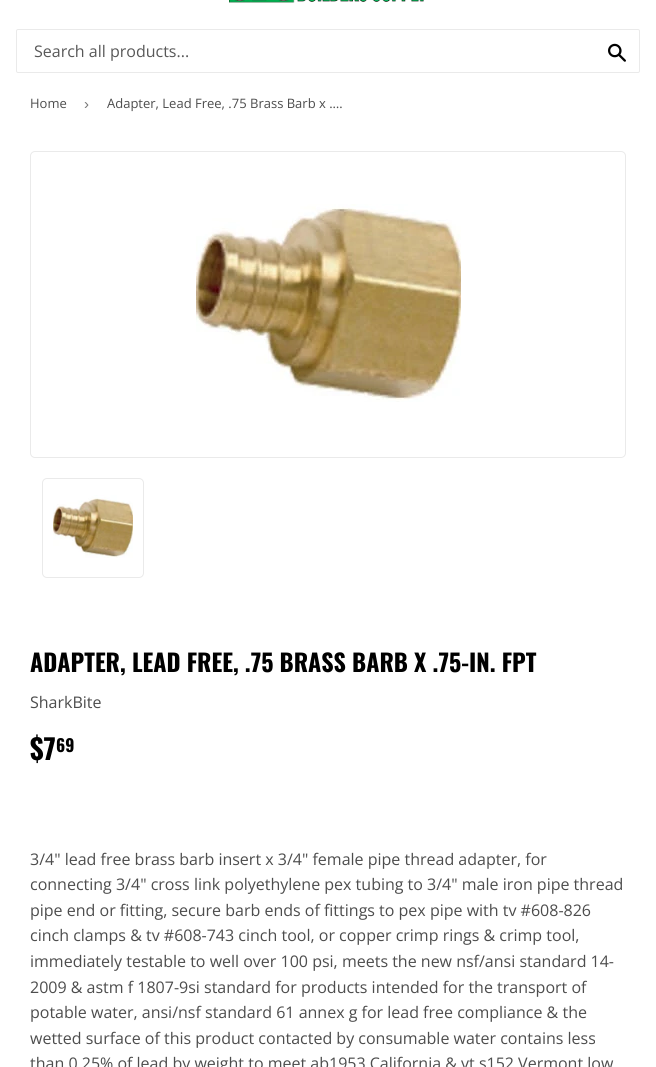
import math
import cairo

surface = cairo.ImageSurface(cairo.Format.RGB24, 656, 1067)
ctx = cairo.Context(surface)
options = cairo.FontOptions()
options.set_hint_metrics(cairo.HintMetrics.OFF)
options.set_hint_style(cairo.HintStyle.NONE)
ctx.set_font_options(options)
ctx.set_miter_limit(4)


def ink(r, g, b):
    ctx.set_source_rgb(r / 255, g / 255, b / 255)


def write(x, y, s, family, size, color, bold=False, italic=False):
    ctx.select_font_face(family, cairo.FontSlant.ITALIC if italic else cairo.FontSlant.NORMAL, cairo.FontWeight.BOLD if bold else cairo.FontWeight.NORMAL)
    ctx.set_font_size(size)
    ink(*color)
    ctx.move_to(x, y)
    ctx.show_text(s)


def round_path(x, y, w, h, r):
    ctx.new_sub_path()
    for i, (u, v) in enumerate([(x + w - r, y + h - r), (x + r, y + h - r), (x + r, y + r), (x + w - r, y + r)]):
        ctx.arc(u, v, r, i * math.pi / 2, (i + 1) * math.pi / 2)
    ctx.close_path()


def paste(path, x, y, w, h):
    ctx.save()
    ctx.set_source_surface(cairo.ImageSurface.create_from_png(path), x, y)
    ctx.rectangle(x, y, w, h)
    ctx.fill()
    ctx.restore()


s1 = dict(family="Open Sans", size=16, color=(88, 88, 88))
s2 = dict(family="Open Sans", size=13, color=(77, 77, 77))
s3 = dict(family="Liberation Sans", size=15, color=(118, 118, 118))
s4 = dict(family="Oswald", size=24, color=(0, 0, 0), bold=True)
s5 = dict(family="Open Sans", size=16, color=(77, 77, 77))
s6 = dict(family="Oswald", size=28, color=(0, 0, 0), bold=True)
s7 = dict(family="Oswald", size=17, color=(0, 0, 0), bold=True)

ink(255, 255, 255)
ctx.paint()
paste("pic1.png", 229, 0, 195, 3)
round_path(16.5, 29.5, 623, 43, 1.5)
ink(234, 234, 234)
ctx.set_line_width(1)
ctx.stroke()
write(34, 57, "Search all products...", **s1)
paste("pic2.png", 608, 43, 18, 19)
write(30, 108, "Home", **s2)
write(84, 109, "›", **s3)
write(107, 108, "Adapter, Lead Free, .75 Brass Barb x .…", **s2)
round_path(30.5, 151.5, 595, 306, 4.5)
ink(234, 234, 234)
ctx.stroke()
paste("pic3.png", 196, 204, 265, 198)
round_path(42.5, 478.5, 101, 99, 4.5)
ctx.stroke()
paste("pic4.png", 53, 495, 80, 63)
write(30, 672, "ADAPTER, LEAD FREE, .75 BRASS BARB X .75-IN. FPT", **s4)
write(30, 708, "SharkBite", **s5)
write(30, 760, "$7", **s6)
write(56, 752, "69", **s7)
write(30, 865, "3/4\" lead free brass barb insert x 3/4\" female pipe thread adapter, for", **s5)
write(30, 890, "connecting 3/4\" cross link polyethylene pex tubing to 3/4\" male iron pipe thread", **s5)
write(30, 916, "pipe end or fitting, secure barb ends of fittings to pex pipe with tv #608-826", **s5)
write(30, 941, "cinch clamps & tv #608-743 cinch tool, or copper crimp rings & crimp tool,", **s5)
write(30, 967, "immediately testable to well over 100 psi, meets the new nsf/ansi standard 14-", **s5)
write(30, 993, "2009 & astm f 1807-9si standard for products intended for the transport of", **s5)
write(30, 1018, "potable water, ansi/nsf standard 61 annex g for lead free compliance & the", **s5)
write(30, 1044, "wetted surface of this product contacted by consumable water contains less", **s5)
write(30, 1069, "than 0.25% of lead by weight to meet ab1953 California & vt s152 Vermont low", **s5)
surface.write_to_png("screenshot.png")
